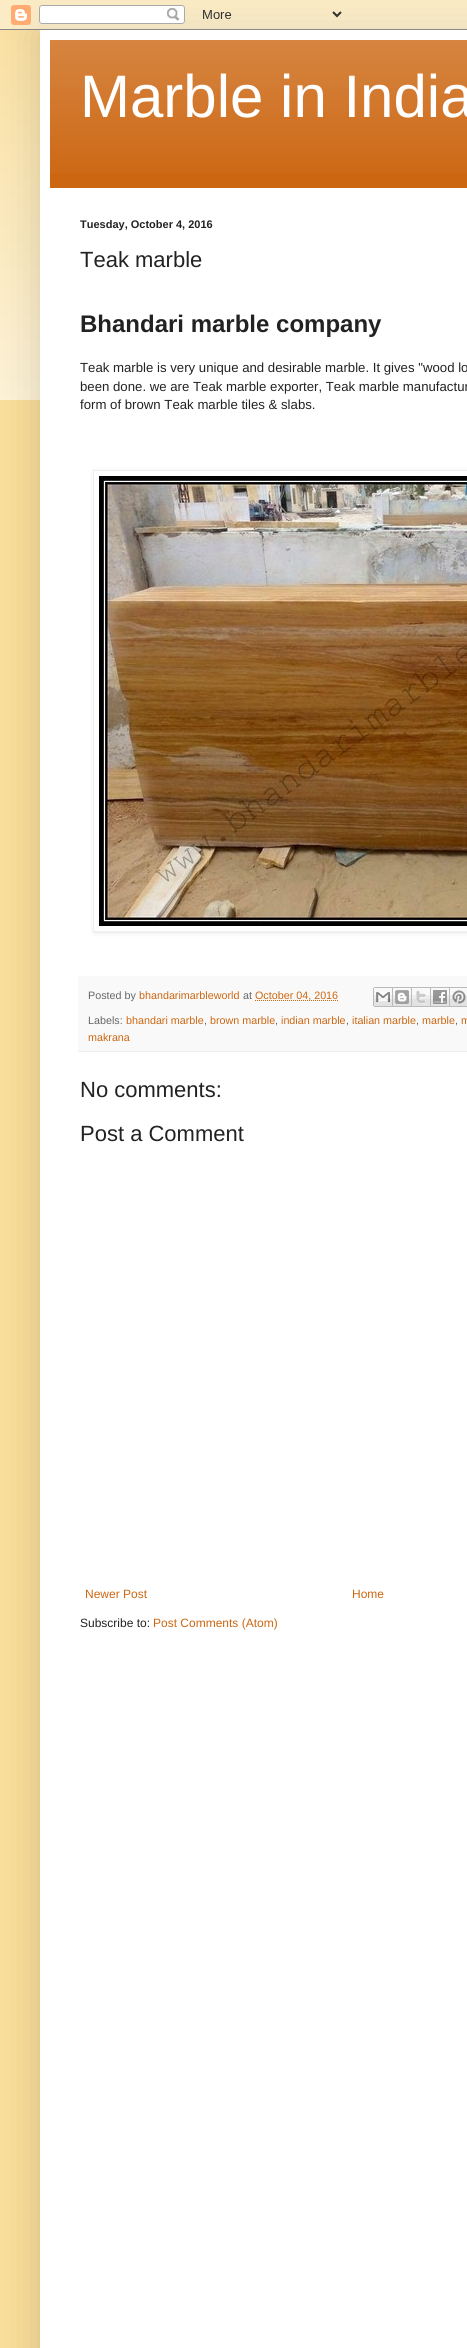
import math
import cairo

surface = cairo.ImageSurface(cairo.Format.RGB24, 467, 2348)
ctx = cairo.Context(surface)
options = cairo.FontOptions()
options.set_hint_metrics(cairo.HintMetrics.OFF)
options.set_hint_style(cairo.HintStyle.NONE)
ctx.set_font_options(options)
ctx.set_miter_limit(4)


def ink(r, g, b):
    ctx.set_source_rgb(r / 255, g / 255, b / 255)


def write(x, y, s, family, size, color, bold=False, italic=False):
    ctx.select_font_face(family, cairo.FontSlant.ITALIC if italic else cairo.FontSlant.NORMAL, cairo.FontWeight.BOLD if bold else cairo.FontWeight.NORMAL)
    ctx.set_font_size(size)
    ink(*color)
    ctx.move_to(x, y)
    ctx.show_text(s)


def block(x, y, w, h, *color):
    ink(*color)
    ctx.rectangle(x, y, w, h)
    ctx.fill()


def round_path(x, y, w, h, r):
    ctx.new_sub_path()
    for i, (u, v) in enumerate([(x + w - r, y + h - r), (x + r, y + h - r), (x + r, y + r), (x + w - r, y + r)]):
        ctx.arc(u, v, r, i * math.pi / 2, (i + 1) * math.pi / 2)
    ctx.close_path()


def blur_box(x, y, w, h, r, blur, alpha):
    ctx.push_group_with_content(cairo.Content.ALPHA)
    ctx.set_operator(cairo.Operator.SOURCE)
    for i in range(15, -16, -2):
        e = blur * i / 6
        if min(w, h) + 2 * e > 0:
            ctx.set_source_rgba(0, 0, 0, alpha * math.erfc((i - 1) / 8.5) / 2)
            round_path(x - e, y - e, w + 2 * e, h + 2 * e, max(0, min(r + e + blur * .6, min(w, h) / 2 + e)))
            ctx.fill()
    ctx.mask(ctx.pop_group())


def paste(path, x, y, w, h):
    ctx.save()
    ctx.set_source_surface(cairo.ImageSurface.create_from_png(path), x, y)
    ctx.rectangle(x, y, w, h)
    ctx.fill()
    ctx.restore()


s1 = dict(family="Liberation Sans", size=60, color=(255, 255, 255))
s2 = dict(family="Liberation Sans", size=11, color=(34, 34, 34), bold=True)
s3 = dict(family="Liberation Sans", size=22, color=(34, 34, 34))
s4 = dict(family="Liberation Sans", size=24, color=(34, 34, 34), bold=True)
s5 = dict(family="Liberation Sans", size=13.2, color=(34, 34, 34))
s6 = dict(family="Liberation Sans", size=10.75, color=(102, 102, 102))
s7 = dict(family="Liberation Sans", size=10.75, color=(204, 102, 17))
s8 = dict(family="Liberation Sans", size=12, color=(204, 102, 17))
s9 = dict(family="Liberation Sans", size=12, color=(34, 34, 34))

ink(249, 221, 153)
ctx.paint()
paste("pic1.png", 0, 0, 467, 400)
ink(0, 0, 0)
blur_box(40, 30, 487, 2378, 0, 20, 0.15)
paste("pic2.png", 0, 0, 467, 30)
block(40, 30, 427, 2318, 255, 255, 255)
block(50, 40, 417, 148, 204, 102, 17)
paste("pic3.png", 50, 40, 417, 133)
write(80, 117, "Marble in India", **s1)
write(80, 228, "Tuesday, October 4, 2016", **s2)
write(80, 267, "Teak marble", **s3)
write(80, 332, "Bhandari marble company", **s4)
write(80, 372, "Teak marble is very unique and desirable marble. It gives \"wood lo", **s5)
write(80, 391, "been done. we are Teak marble exporter, Teak marble manufactur", **s5)
write(80, 409, "form of brown Teak marble tiles & slabs.", **s5)
ctx.save()
ctx.set_fill_rule(cairo.FillRule.EVEN_ODD)
ctx.new_path()
ctx.move_to(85, 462)
ctx.line_to(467, 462)
ctx.line_to(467, 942)
ctx.line_to(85, 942)
ctx.close_path()
ctx.move_to(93, 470)
ctx.line_to(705, 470)
ctx.line_to(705, 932)
ctx.line_to(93, 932)
ctx.close_path()
ctx.clip()
ink(0, 0, 0)
blur_box(94, 471, 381, 462, 0, 2.5, 0.1)
ctx.restore()
ctx.rectangle(93.5, 470.5, 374, 461)
ink(238, 238, 238)
ctx.set_line_width(1)
ctx.stroke()
paste("pic4.png", 99, 476, 368, 450)
block(78, 976, 389, 75, 249, 249, 249)
block(78, 1051, 389, 1, 238, 238, 238)
write(88, 999, "Posted by", **s6)
write(139, 999, "bhandarimarbleworld", **s7)
write(243, 999, "at", **s6)
ctx.new_path()
ctx.move_to(255, 1000.5)
ctx.line_to(338.5, 1000.5)
ink(204, 102, 17)
ctx.set_dash([1, 1])
ctx.stroke()
write(255, 999, "October 04, 2016", **s7)
paste("pic5.png", 373, 987, 20, 20)
paste("pic6.png", 393, 987, 19, 20)
paste("pic7.png", 412, 987, 19, 20)
paste("pic8.png", 431, 987, 19, 20)
paste("pic9.png", 450, 987, 17, 20)
write(88, 1024, "Labels:", **s6)
write(126, 1024, "bhandari marble", **s7)
write(204, 1024, ",", **s6)
write(210, 1024, "brown marble", **s7)
write(275, 1024, ",", **s6)
write(281, 1024, "indian marble", **s7)
write(346, 1024, ",", **s6)
write(352, 1024, "italian marble", **s7)
write(416, 1024, ",", **s6)
write(422, 1024, "marble", **s7)
write(455, 1024, ",", **s6)
write(461, 1024, "m", **s7)
write(88, 1041, "makrana", **s7)
write(80, 1097, "No comments:", **s3)
write(80, 1141, "Post a Comment", **s3)
write(85, 1598, "Newer Post", **s8)
write(352, 1598, "Home", **s8)
write(80, 1627, "Subscribe to:", **s9)
write(153, 1627, "Post Comments (Atom)", **s8)
surface.write_to_png("screenshot.png")
